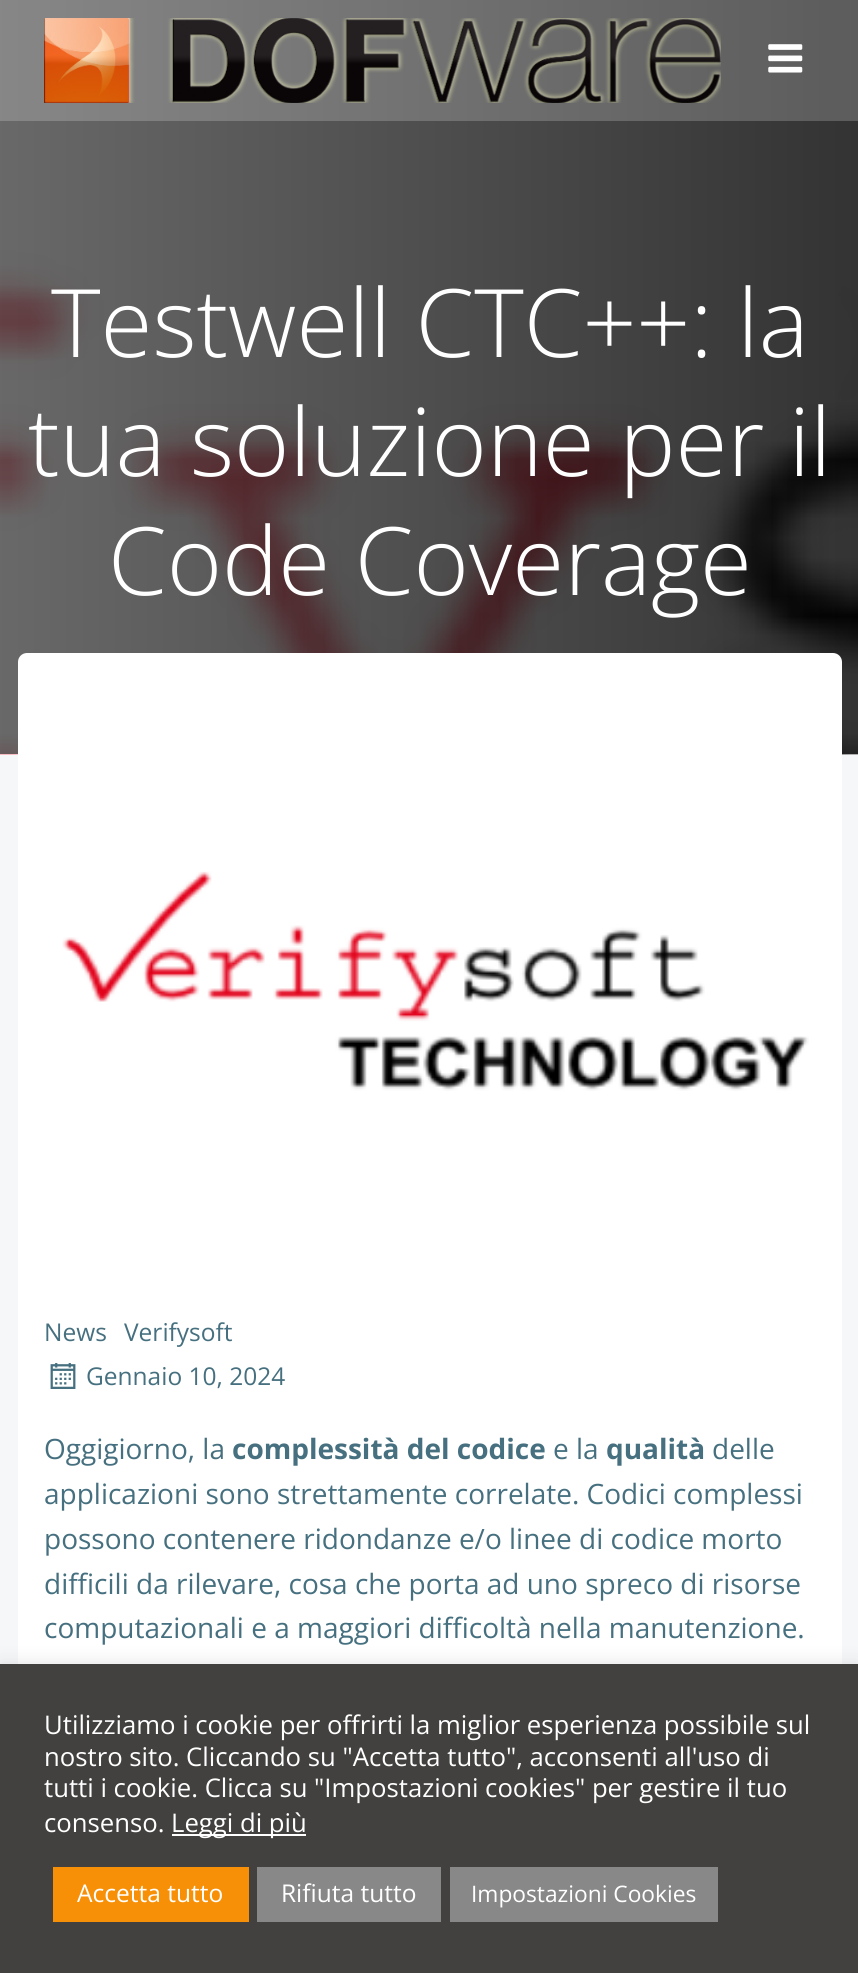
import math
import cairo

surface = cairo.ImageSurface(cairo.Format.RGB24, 858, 1973)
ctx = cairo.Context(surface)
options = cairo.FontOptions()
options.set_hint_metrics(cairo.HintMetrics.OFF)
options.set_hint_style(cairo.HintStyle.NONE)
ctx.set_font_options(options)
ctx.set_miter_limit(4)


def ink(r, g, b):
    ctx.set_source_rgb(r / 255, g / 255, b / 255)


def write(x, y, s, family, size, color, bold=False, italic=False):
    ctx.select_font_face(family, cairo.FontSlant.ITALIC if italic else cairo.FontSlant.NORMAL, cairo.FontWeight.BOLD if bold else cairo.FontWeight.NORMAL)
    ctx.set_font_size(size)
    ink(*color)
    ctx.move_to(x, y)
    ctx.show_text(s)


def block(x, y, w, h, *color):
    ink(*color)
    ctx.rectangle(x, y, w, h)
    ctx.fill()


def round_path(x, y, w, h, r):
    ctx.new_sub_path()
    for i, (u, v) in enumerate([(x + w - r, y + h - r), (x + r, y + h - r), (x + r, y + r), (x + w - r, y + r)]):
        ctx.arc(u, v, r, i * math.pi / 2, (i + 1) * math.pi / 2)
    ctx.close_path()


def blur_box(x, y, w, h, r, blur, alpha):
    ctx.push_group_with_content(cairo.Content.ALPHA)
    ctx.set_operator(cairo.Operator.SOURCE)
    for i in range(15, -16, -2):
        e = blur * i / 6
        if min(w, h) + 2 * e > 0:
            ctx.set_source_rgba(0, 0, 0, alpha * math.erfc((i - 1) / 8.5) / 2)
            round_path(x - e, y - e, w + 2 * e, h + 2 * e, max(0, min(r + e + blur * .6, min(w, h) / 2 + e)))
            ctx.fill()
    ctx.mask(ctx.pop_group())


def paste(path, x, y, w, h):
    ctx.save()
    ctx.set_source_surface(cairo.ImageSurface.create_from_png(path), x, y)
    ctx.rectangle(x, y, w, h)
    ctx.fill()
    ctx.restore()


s1 = dict(family="Open Sans Light", size=94.5, color=(255, 255, 255))
s2 = dict(family="Open Sans", size=24.5, color=(70, 112, 127))
s3 = dict(family="Open Sans", size=28, color=(70, 112, 127))
s4 = dict(family="Open Sans", size=28, color=(70, 112, 127), bold=True)
s5 = dict(family="Open Sans", size=25.7, color=(255, 255, 255))
s6 = dict(family="Open Sans", size=24.5, color=(255, 255, 255))
s7 = dict(family="Open Sans", size=22.75, color=(255, 255, 255))

ink(255, 255, 255)
ctx.paint()
paste("pic3.png", 834, 191, 24, 511)
block(0, 754, 858, 910, 245, 247, 248)
paste("pic4.png", 0, 191, 858, 564)
gradient = cairo.LinearGradient(0, 377, 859, 377)
gradient.add_color_stop_rgba(0, 0.263, 0.263, 0.263, 0.8)
gradient.add_color_stop_rgba(1, 0, 0, 0, 0.8)
ctx.set_source(gradient)
ctx.rectangle(0, 0, 858, 754)
ctx.fill()
ctx.set_source_rgba(1, 1, 1, 0.2)
ctx.rectangle(0, 0, 858, 121)
ctx.fill()
paste("pic1.png", 44, 18, 677, 85)
paste("pic2.png", 768, 44, 35, 29)
write(51, 357, "Testwell CTC++: la", **s1)
write(28, 476, "tua soluzione per il", **s1)
write(108, 595, "Code Coverage", **s1)
round_path(18, 653, 824, 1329, 9)
ctx.fill()
paste("pic5.png", 62, 871, 747, 220)
write(44, 1341, "News", **s2)
write(124, 1341, "Verifysoft", **s2)
paste("pic6.png", 50, 1363, 26, 26)
write(86, 1385, "Gennaio 10, 2024", **s2)
write(44, 1459, "Oggigiorno, la", **s3)
write(232, 1459, "complessità del codice", **s4)
write(553, 1459, "e la", **s3)
write(606, 1459, "qualità", **s4)
write(712, 1459, "delle", **s3)
write(44, 1504, "applicazioni sono strettamente correlate. Codici complessi", **s3)
write(44, 1549, "possono contenere ridondanze e/o linee di codice morto", **s3)
write(44, 1594, "difficili da rilevare, cosa che porta ad uno spreco di risorse", **s3)
write(44, 1638, "computazionali e a maggiori difficoltà nella manutenzione.", **s3)
ink(172, 171, 171)
blur_box(0, 1663, 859, 309, 0, 9, 0.3)
block(0, 1664, 858, 309, 66, 65, 64)
write(44, 1734, "Utilizziamo i cookie per offrirti la miglior esperienza possibile sul", **s5)
write(44, 1766, "nostro sito. Cliccando su \"Accetta tutto\", acconsenti all'uso di", **s5)
write(44, 1797, "tutti i cookie. Clicca su \"Impostazioni cookies\" per gestire il tuo", **s5)
write(44, 1832, "consenso.", **s5)
block(172, 1834, 134, 2, 255, 255, 255)
write(171, 1832, "Leggi di più", **s5)
block(53, 1867, 196, 55, 247, 144, 7)
write(77, 1902, "Accetta tutto", **s6)
block(257, 1867, 184, 55, 137, 136, 136)
write(281, 1902, "Rifiuta tutto", **s6)
block(450, 1867, 268, 55, 137, 136, 136)
write(471, 1902, "Impostazioni Cookies", **s7)
surface.write_to_png("screenshot.png")
